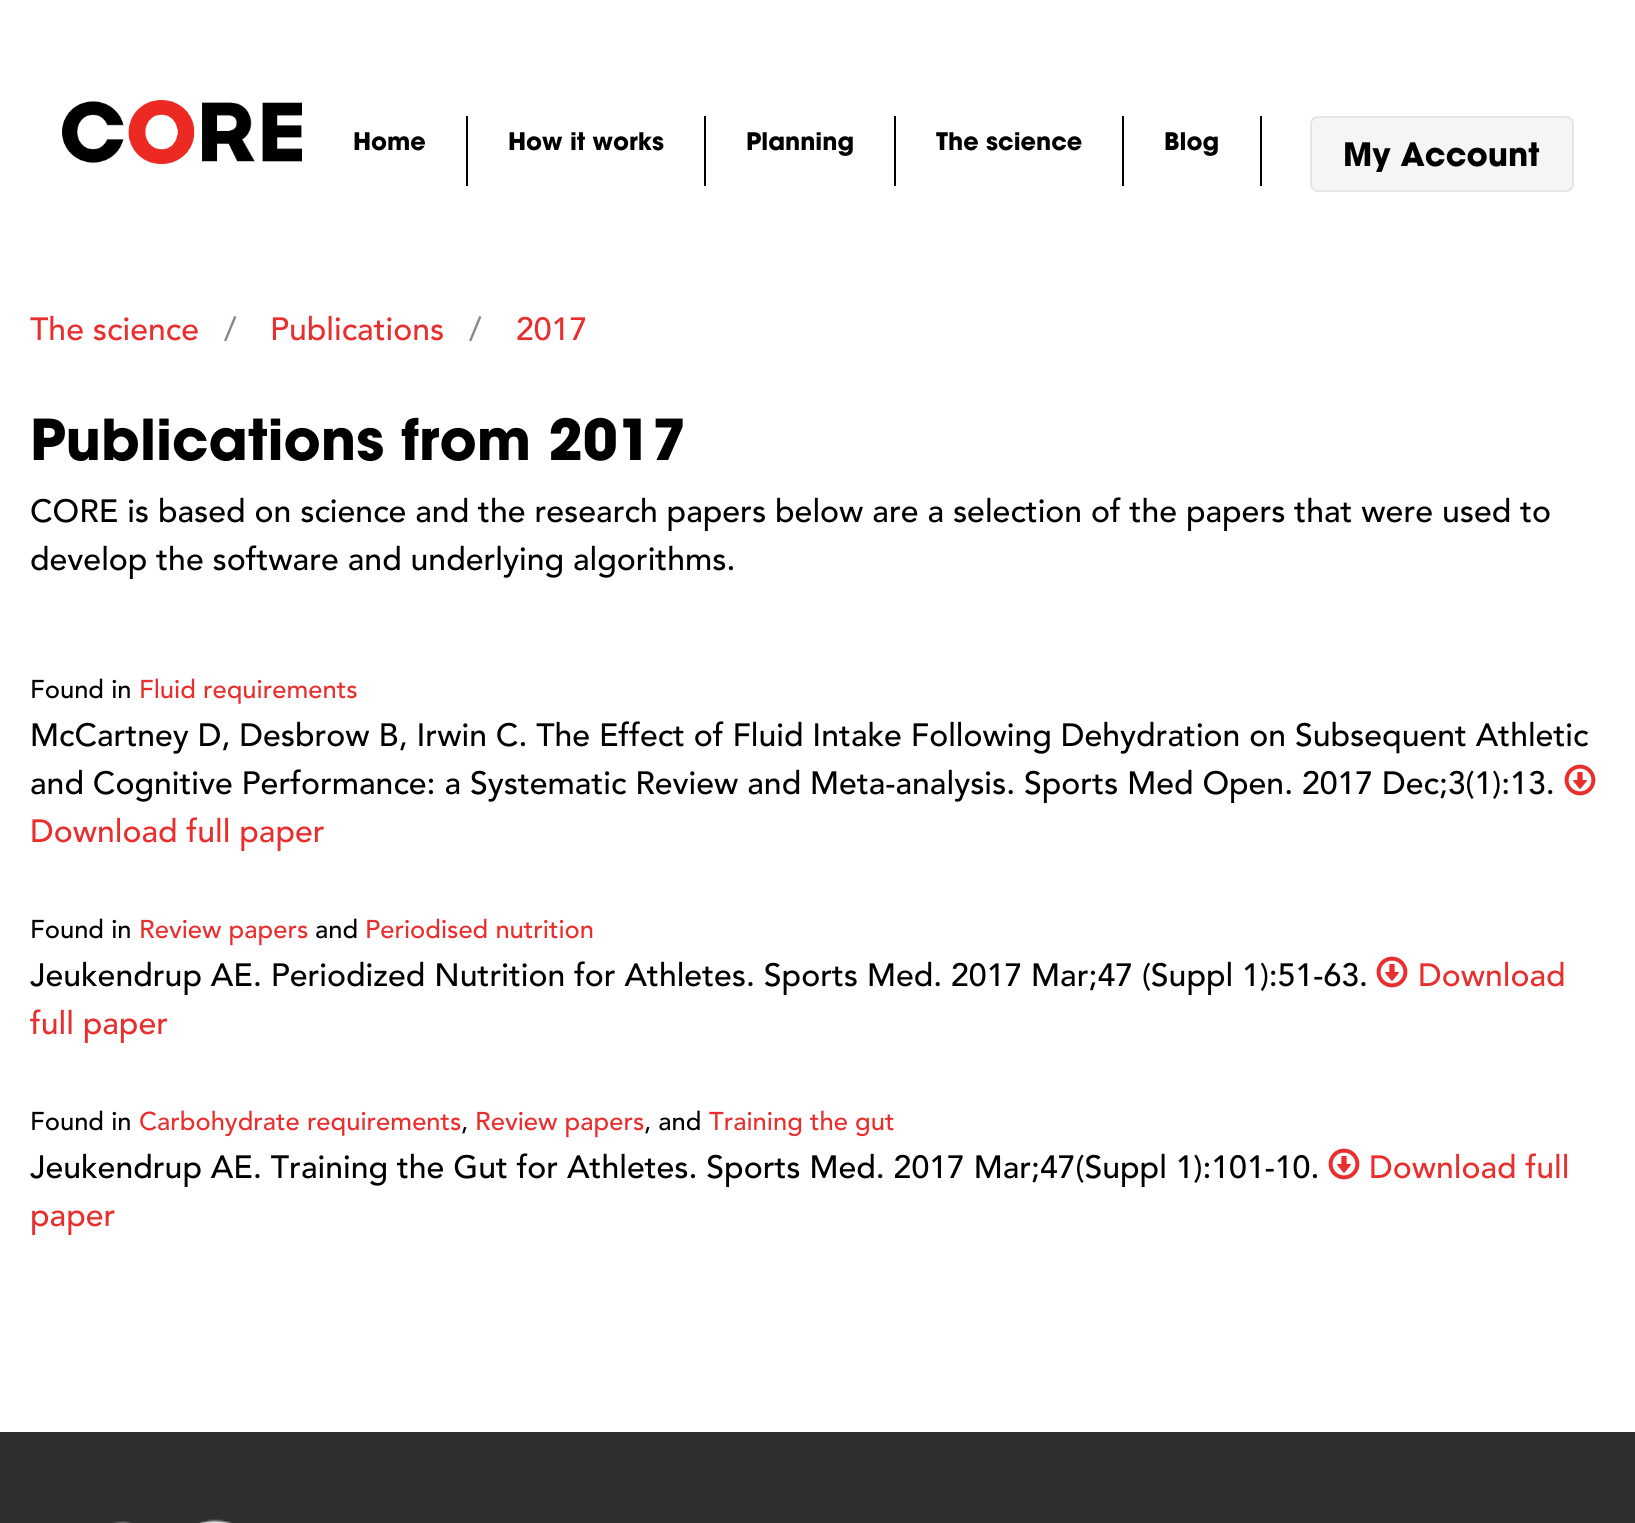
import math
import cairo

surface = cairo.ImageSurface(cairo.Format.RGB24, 1635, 1523)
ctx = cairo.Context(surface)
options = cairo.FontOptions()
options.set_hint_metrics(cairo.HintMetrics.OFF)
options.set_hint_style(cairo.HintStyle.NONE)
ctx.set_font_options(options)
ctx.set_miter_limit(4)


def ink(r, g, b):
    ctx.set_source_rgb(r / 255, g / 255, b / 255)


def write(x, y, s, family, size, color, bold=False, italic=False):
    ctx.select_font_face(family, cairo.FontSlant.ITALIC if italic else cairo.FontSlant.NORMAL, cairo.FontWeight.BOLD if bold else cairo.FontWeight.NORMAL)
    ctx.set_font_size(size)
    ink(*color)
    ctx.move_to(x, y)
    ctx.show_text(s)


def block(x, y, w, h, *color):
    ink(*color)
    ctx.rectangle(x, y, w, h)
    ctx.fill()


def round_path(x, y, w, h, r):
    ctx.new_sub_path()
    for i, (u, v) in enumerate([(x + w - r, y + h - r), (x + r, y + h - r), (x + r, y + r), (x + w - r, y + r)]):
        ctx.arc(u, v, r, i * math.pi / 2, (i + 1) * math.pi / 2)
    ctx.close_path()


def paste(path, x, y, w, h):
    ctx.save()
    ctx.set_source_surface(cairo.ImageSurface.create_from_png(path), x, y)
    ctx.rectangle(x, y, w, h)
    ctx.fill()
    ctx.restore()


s1 = dict(family="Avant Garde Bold", size=24, color=(0, 0, 0), bold=True)
s2 = dict(family="Avant Garde Bold", size=32, color=(0, 0, 0), bold=True)
s3 = dict(family="Avenir Medium", size=32, color=(233, 47, 45))
s4 = dict(family="Avenir Medium", size=32, color=(129, 138, 145))
s5 = dict(family="Avant Garde Bold", size=56, color=(0, 0, 0), bold=True)
s6 = dict(family="Avenir Medium", size=32, color=(0, 0, 0))
s7 = dict(family="Avenir Medium", size=25.6, color=(0, 0, 0))
s8 = dict(family="Avenir Medium", size=25.6, color=(233, 47, 45))

ink(255, 255, 255)
ctx.paint()
paste("pic1.png", 62, 100, 240, 64)
block(466, 116, 2, 70, 0, 0, 0)
write(353, 150, "Home", **s1)
block(704, 116, 2, 70, 0, 0, 0)
write(508, 150, "How it works", **s1)
block(894, 116, 2, 70, 0, 0, 0)
write(746, 150, "Planning", **s1)
block(1122, 116, 2, 70, 0, 0, 0)
write(936, 150, "The science", **s1)
block(1260, 116, 2, 70, 0, 0, 0)
write(1164, 150, "Blog", **s1)
ink(245, 245, 245)
round_path(1311, 117, 262, 74, 7)
ctx.fill_preserve()
ink(229, 229, 229)
ctx.stroke()
write(1343, 166, "My Account", **s2)
write(30, 340, "The science", **s3)
write(224, 340, "/", **s4)
write(270, 340, "Publications", **s3)
write(469, 340, "/", **s4)
write(516, 340, "2017", **s3)
write(30, 460, "Publications from 2017", **s5)
write(30, 522, "CORE is based on science and the research papers below are a selection of the papers that were used to", **s6)
write(30, 570, "develop the software and underlying algorithms.", **s6)
write(30, 698, "Found in", **s7)
write(139, 698, "Fluid requirements", **s8)
write(30, 746, "McCartney D, Desbrow B, Irwin C. The Effect of Fluid Intake Following Dehydration on Subsequent Athletic", **s6)
write(30, 794, "and Cognitive Performance: a Systematic Review and Meta-analysis. Sports Med Open. 2017 Dec;3(1):13.", **s6)
paste("pic2.png", 1564, 764, 32, 32)
write(30, 842, "Download full paper", **s3)
write(30, 938, "Found in", **s7)
write(139, 938, "Review papers", **s8)
write(315, 938, "and", **s7)
write(365, 938, "Periodised nutrition", **s8)
write(30, 986, "Jeukendrup AE. Periodized Nutrition for Athletes. Sports Med. 2017 Mar;47 (Suppl 1):51-63.", **s6)
paste("pic2.png", 1376, 956, 32, 32)
write(1418, 986, "Download", **s3)
write(30, 1034, "full paper", **s3)
write(30, 1130, "Found in", **s7)
write(139, 1130, "Carbohydrate requirements", **s8)
write(461, 1130, ",", **s7)
write(475, 1130, "Review papers", **s8)
write(644, 1130, ", and", **s7)
write(709, 1130, "Training the gut", **s8)
write(30, 1178, "Jeukendrup AE. Training the Gut for Athletes. Sports Med. 2017 Mar;47(Suppl 1):101-10.", **s6)
paste("pic2.png", 1328, 1148, 32, 32)
write(1369, 1178, "Download full", **s3)
write(30, 1226, "paper", **s3)
block(0, 1432, 1635, 91, 47, 46, 46)
paste("pic3.png", 113, 1519, 120, 4)
surface.write_to_png("screenshot.png")
